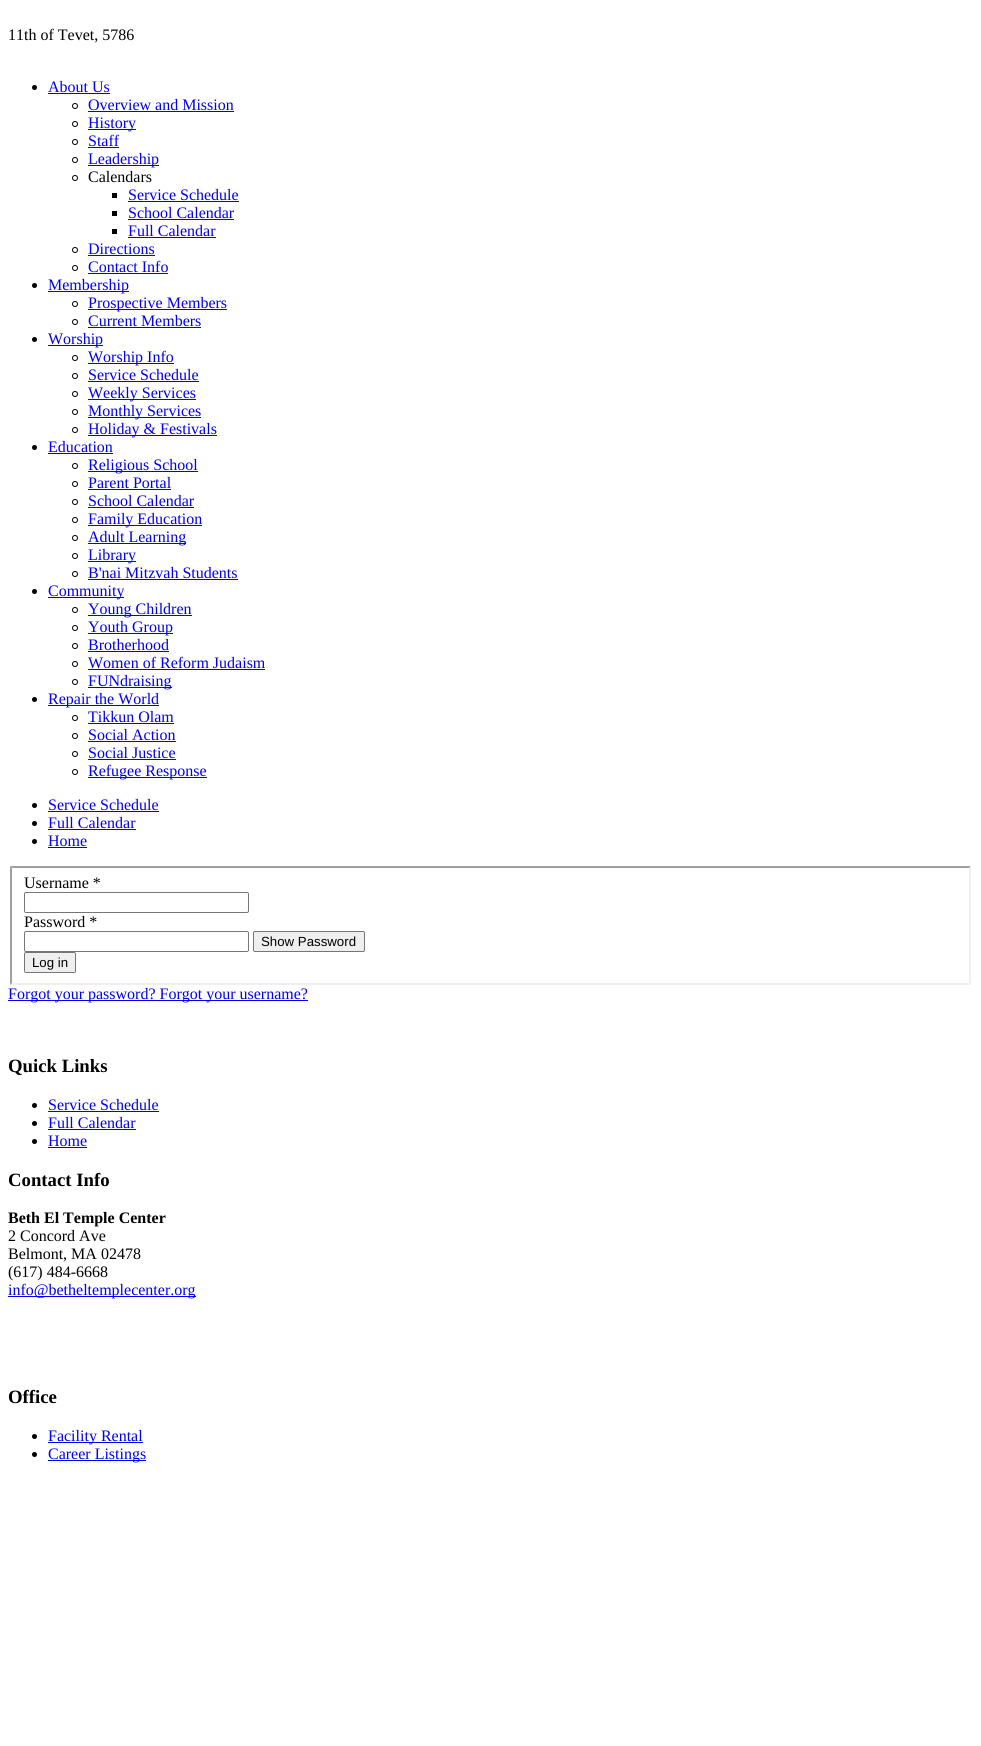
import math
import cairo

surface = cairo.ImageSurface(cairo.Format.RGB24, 981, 1746)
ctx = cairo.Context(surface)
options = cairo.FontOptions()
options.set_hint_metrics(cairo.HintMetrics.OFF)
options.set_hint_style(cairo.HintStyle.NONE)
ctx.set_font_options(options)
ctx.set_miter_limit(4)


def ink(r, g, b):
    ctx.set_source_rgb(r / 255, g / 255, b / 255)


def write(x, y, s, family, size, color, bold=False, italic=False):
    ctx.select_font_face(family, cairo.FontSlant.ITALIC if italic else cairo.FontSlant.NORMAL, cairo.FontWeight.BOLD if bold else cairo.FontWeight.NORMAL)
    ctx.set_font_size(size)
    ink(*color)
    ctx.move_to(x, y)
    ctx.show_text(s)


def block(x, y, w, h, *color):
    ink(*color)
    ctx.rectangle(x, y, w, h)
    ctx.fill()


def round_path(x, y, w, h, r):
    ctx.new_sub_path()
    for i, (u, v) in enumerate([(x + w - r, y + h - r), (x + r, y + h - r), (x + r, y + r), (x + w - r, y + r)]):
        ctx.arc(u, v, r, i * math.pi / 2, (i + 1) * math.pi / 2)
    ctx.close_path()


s1 = dict(family="Liberation Serif", size=16, color=(0, 0, 0))
s2 = dict(family="Liberation Serif", size=16, color=(0, 0, 238))
s3 = dict(family="Liberation Sans", size=13.25, color=(0, 0, 0))
s4 = dict(family="Liberation Serif", size=18.75, color=(0, 0, 0), bold=True)
s5 = dict(family="Liberation Serif", size=16, color=(0, 0, 0), bold=True)

ink(255, 255, 255)
ctx.paint()
write(8, 40, "11th of Tevet, 5786", **s1)
ctx.new_path()
ctx.arc(34.5, 87.5, 2.5, 0, 2 * math.pi)
ctx.fill()
write(48, 92, "About Us", **s2)
block(48, 93, 62, 1, 0, 0, 238)
ctx.new_path()
ctx.arc(75, 106, 2.5, 0, 2 * math.pi)
ink(0, 0, 0)
ctx.set_line_width(1)
ctx.stroke()
write(88, 110, "Overview and Mission", **s2)
block(88, 111, 146, 1, 0, 0, 238)
ctx.new_path()
ctx.arc(75, 124, 2.5, 0, 2 * math.pi)
ink(0, 0, 0)
ctx.stroke()
block(88, 129, 48, 1, 0, 0, 238)
write(88, 128, "History", **s2)
ctx.new_path()
ctx.arc(75, 142, 2.5, 0, 2 * math.pi)
ink(0, 0, 0)
ctx.stroke()
write(88, 146, "Staff", **s2)
block(88, 147, 31, 1, 0, 0, 238)
ctx.new_path()
ctx.arc(75, 160, 2.5, 0, 2 * math.pi)
ink(0, 0, 0)
ctx.stroke()
block(88, 165, 71, 1, 0, 0, 238)
write(88, 164, "Leadership", **s2)
ctx.new_path()
ctx.arc(75, 178, 2.5, 0, 2 * math.pi)
ink(0, 0, 0)
ctx.stroke()
write(88, 182, "Calendars", **s1)
block(112, 193, 5, 5, 0, 0, 0)
write(128, 200, "Service Schedule", **s2)
block(128, 201, 111, 1, 0, 0, 238)
block(112, 211, 5, 5, 0, 0, 0)
write(128, 218, "School Calendar", **s2)
block(128, 219, 106, 1, 0, 0, 238)
block(112, 229, 5, 5, 0, 0, 0)
write(128, 236, "Full Calendar", **s2)
block(128, 237, 88, 1, 0, 0, 238)
ctx.new_path()
ctx.arc(75, 250, 2.5, 0, 2 * math.pi)
ink(0, 0, 0)
ctx.stroke()
write(88, 254, "Directions", **s2)
block(88, 255, 67, 1, 0, 0, 238)
ctx.new_path()
ctx.arc(75, 268, 2.5, 0, 2 * math.pi)
ink(0, 0, 0)
ctx.stroke()
write(88, 272, "Contact Info", **s2)
block(88, 273, 80, 1, 0, 0, 238)
ink(0, 0, 0)
ctx.new_path()
ctx.arc(34.5, 285.5, 2.5, 0, 2 * math.pi)
ctx.fill()
block(48, 291, 81, 1, 0, 0, 238)
write(48, 290, "Membership", **s2)
ctx.new_path()
ctx.arc(75, 304, 2.5, 0, 2 * math.pi)
ink(0, 0, 0)
ctx.stroke()
block(88, 309, 139, 1, 0, 0, 238)
write(88, 308, "Prospective Members", **s2)
ctx.new_path()
ctx.arc(75, 322, 2.5, 0, 2 * math.pi)
ink(0, 0, 0)
ctx.stroke()
write(88, 326, "Current Members", **s2)
block(88, 327, 113, 1, 0, 0, 238)
ink(0, 0, 0)
ctx.new_path()
ctx.arc(34.5, 339.5, 2.5, 0, 2 * math.pi)
ctx.fill()
block(48, 345, 55, 1, 0, 0, 238)
write(48, 344, "Worship", **s2)
ctx.new_path()
ctx.arc(75, 358, 2.5, 0, 2 * math.pi)
ink(0, 0, 0)
ctx.stroke()
block(88, 363, 86, 1, 0, 0, 238)
write(88, 362, "Worship Info", **s2)
ctx.new_path()
ctx.arc(75, 376, 2.5, 0, 2 * math.pi)
ink(0, 0, 0)
ctx.stroke()
write(88, 380, "Service Schedule", **s2)
block(88, 381, 111, 1, 0, 0, 238)
ctx.new_path()
ctx.arc(75, 394, 2.5, 0, 2 * math.pi)
ink(0, 0, 0)
ctx.stroke()
block(88, 399, 108, 1, 0, 0, 238)
write(88, 398, "Weekly Services", **s2)
ctx.new_path()
ctx.arc(75, 412, 2.5, 0, 2 * math.pi)
ink(0, 0, 0)
ctx.stroke()
block(88, 417, 113, 1, 0, 0, 238)
write(88, 416, "Monthly Services", **s2)
ctx.new_path()
ctx.arc(75, 430, 2.5, 0, 2 * math.pi)
ink(0, 0, 0)
ctx.stroke()
block(88, 435, 129, 1, 0, 0, 238)
write(88, 434, "Holiday & Festivals", **s2)
ink(0, 0, 0)
ctx.new_path()
ctx.arc(34.5, 447.5, 2.5, 0, 2 * math.pi)
ctx.fill()
write(48, 452, "Education", **s2)
block(48, 453, 65, 1, 0, 0, 238)
ctx.new_path()
ctx.arc(75, 466, 2.5, 0, 2 * math.pi)
ink(0, 0, 0)
ctx.stroke()
block(88, 471, 110, 1, 0, 0, 238)
write(88, 470, "Religious School", **s2)
ctx.new_path()
ctx.arc(75, 484, 2.5, 0, 2 * math.pi)
ink(0, 0, 0)
ctx.stroke()
write(88, 488, "Parent Portal", **s2)
block(88, 489, 83, 1, 0, 0, 238)
ctx.new_path()
ctx.arc(75, 502, 2.5, 0, 2 * math.pi)
ink(0, 0, 0)
ctx.stroke()
write(88, 506, "School Calendar", **s2)
block(88, 507, 106, 1, 0, 0, 238)
ctx.new_path()
ctx.arc(75, 520, 2.5, 0, 2 * math.pi)
ink(0, 0, 0)
ctx.stroke()
block(88, 525, 114, 1, 0, 0, 238)
write(88, 524, "Family Education", **s2)
ctx.new_path()
ctx.arc(75, 538, 2.5, 0, 2 * math.pi)
ink(0, 0, 0)
ctx.stroke()
block(88, 543, 98, 1, 0, 0, 238)
write(88, 542, "Adult Learning", **s2)
ctx.new_path()
ctx.arc(75, 556, 2.5, 0, 2 * math.pi)
ink(0, 0, 0)
ctx.stroke()
block(88, 561, 48, 1, 0, 0, 238)
write(88, 560, "Library", **s2)
ctx.new_path()
ctx.arc(75, 574, 2.5, 0, 2 * math.pi)
ink(0, 0, 0)
ctx.stroke()
write(88, 578, "B'nai Mitzvah Students", **s2)
block(88, 579, 150, 1, 0, 0, 238)
ink(0, 0, 0)
ctx.new_path()
ctx.arc(34.5, 591.5, 2.5, 0, 2 * math.pi)
ctx.fill()
block(48, 597, 76, 1, 0, 0, 238)
write(48, 596, "Community", **s2)
ctx.new_path()
ctx.arc(75, 610, 2.5, 0, 2 * math.pi)
ink(0, 0, 0)
ctx.stroke()
block(88, 615, 104, 1, 0, 0, 238)
write(88, 614, "Young Children", **s2)
ctx.new_path()
ctx.arc(75, 628, 2.5, 0, 2 * math.pi)
ink(0, 0, 0)
ctx.stroke()
block(88, 633, 85, 1, 0, 0, 238)
write(88, 632, "Youth Group", **s2)
ctx.new_path()
ctx.arc(75, 646, 2.5, 0, 2 * math.pi)
ink(0, 0, 0)
ctx.stroke()
write(88, 650, "Brotherhood", **s2)
block(88, 651, 81, 1, 0, 0, 238)
ctx.new_path()
ctx.arc(75, 664, 2.5, 0, 2 * math.pi)
ink(0, 0, 0)
ctx.stroke()
write(88, 668, "Women of Reform Judaism", **s2)
block(88, 669, 177, 1, 0, 0, 238)
ctx.new_path()
ctx.arc(75, 682, 2.5, 0, 2 * math.pi)
ink(0, 0, 0)
ctx.stroke()
block(88, 687, 84, 1, 0, 0, 238)
write(88, 686, "FUNdraising", **s2)
ink(0, 0, 0)
ctx.new_path()
ctx.arc(34.5, 699.5, 2.5, 0, 2 * math.pi)
ctx.fill()
block(48, 705, 111, 1, 0, 0, 238)
write(48, 704, "Repair the World", **s2)
ctx.new_path()
ctx.arc(75, 718, 2.5, 0, 2 * math.pi)
ink(0, 0, 0)
ctx.stroke()
write(88, 722, "Tikkun Olam", **s2)
block(88, 723, 86, 1, 0, 0, 238)
ctx.new_path()
ctx.arc(75, 736, 2.5, 0, 2 * math.pi)
ink(0, 0, 0)
ctx.stroke()
write(88, 740, "Social Action", **s2)
block(88, 741, 88, 1, 0, 0, 238)
ctx.new_path()
ctx.arc(75, 754, 2.5, 0, 2 * math.pi)
ink(0, 0, 0)
ctx.stroke()
write(88, 758, "Social Justice", **s2)
block(88, 759, 88, 1, 0, 0, 238)
ctx.new_path()
ctx.arc(75, 772, 2.5, 0, 2 * math.pi)
ink(0, 0, 0)
ctx.stroke()
block(88, 777, 119, 1, 0, 0, 238)
write(88, 776, "Refugee Response", **s2)
ink(0, 0, 0)
ctx.new_path()
ctx.arc(34.5, 805.5, 2.5, 0, 2 * math.pi)
ctx.fill()
write(48, 810, "Service Schedule", **s2)
block(48, 811, 111, 1, 0, 0, 238)
ink(0, 0, 0)
ctx.new_path()
ctx.arc(34.5, 823.5, 2.5, 0, 2 * math.pi)
ctx.fill()
write(48, 828, "Full Calendar", **s2)
block(48, 829, 88, 1, 0, 0, 238)
ink(0, 0, 0)
ctx.new_path()
ctx.arc(34.5, 841.5, 2.5, 0, 2 * math.pi)
ctx.fill()
write(48, 846, "Home", **s2)
block(48, 847, 39, 1, 0, 0, 238)
ink(159, 159, 159)
ctx.new_path()
ctx.move_to(10, 866)
ctx.line_to(971, 866)
ctx.line_to(969, 868)
ctx.line_to(12, 868)
ctx.close_path()
ctx.fill()
ink(239, 239, 239)
ctx.new_path()
ctx.move_to(971, 866)
ctx.line_to(971, 985)
ctx.line_to(969, 983)
ctx.line_to(969, 868)
ctx.close_path()
ctx.fill()
ctx.new_path()
ctx.move_to(971, 985)
ctx.line_to(10, 985)
ctx.line_to(12, 983)
ctx.line_to(969, 983)
ctx.close_path()
ctx.fill()
ink(159, 159, 159)
ctx.new_path()
ctx.move_to(10, 985)
ctx.line_to(10, 866)
ctx.line_to(12, 868)
ctx.line_to(12, 983)
ctx.close_path()
ctx.fill()
write(24, 888, "Username *", **s1)
round_path(24.5, 892.5, 224, 20, 1.5)
ink(118, 118, 118)
ctx.stroke()
write(24, 927, "Password *", **s1)
round_path(24.5, 931.5, 224, 20, 1.5)
ink(118, 118, 118)
ctx.stroke()
ink(239, 239, 239)
round_path(253.5, 931.5, 111, 20, 1.5)
ctx.fill_preserve()
ink(118, 118, 118)
ctx.stroke()
write(261, 946, "Show Password", **s3)
ink(239, 239, 239)
round_path(24.5, 952.5, 51, 20, 1.5)
ctx.fill_preserve()
ink(118, 118, 118)
ctx.stroke()
write(32, 967, "Log in", **s3)
block(8, 1000, 300, 1, 0, 0, 238)
write(8, 999, "Forgot your password? Forgot your username?", **s2)
write(8, 1072, "Quick Links", **s4)
ctx.new_path()
ctx.arc(34.5, 1105.5, 2.5, 0, 2 * math.pi)
ctx.fill()
write(48, 1110, "Service Schedule", **s2)
block(48, 1111, 111, 1, 0, 0, 238)
ink(0, 0, 0)
ctx.new_path()
ctx.arc(34.5, 1123.5, 2.5, 0, 2 * math.pi)
ctx.fill()
write(48, 1128, "Full Calendar", **s2)
block(48, 1129, 88, 1, 0, 0, 238)
ink(0, 0, 0)
ctx.new_path()
ctx.arc(34.5, 1141.5, 2.5, 0, 2 * math.pi)
ctx.fill()
write(48, 1146, "Home", **s2)
block(48, 1147, 39, 1, 0, 0, 238)
write(8, 1186, "Contact Info", **s4)
write(8, 1223, "Beth El Temple Center", **s5)
write(8, 1241, "2 Concord Ave", **s1)
write(8, 1259, "Belmont, MA 02478", **s1)
write(8, 1277, "(617) 484-6668", **s1)
block(8, 1296, 188, 1, 0, 0, 238)
write(8, 1295, "info@betheltemplecenter.org", **s2)
write(8, 1403, "Office", **s4)
ctx.new_path()
ctx.arc(34.5, 1436.5, 2.5, 0, 2 * math.pi)
ctx.fill()
block(48, 1442, 95, 1, 0, 0, 238)
write(48, 1441, "Facility Rental", **s2)
ink(0, 0, 0)
ctx.new_path()
ctx.arc(34.5, 1454.5, 2.5, 0, 2 * math.pi)
ctx.fill()
block(48, 1460, 98, 1, 0, 0, 238)
write(48, 1459, "Career Listings", **s2)
surface.write_to_png("screenshot.png")
